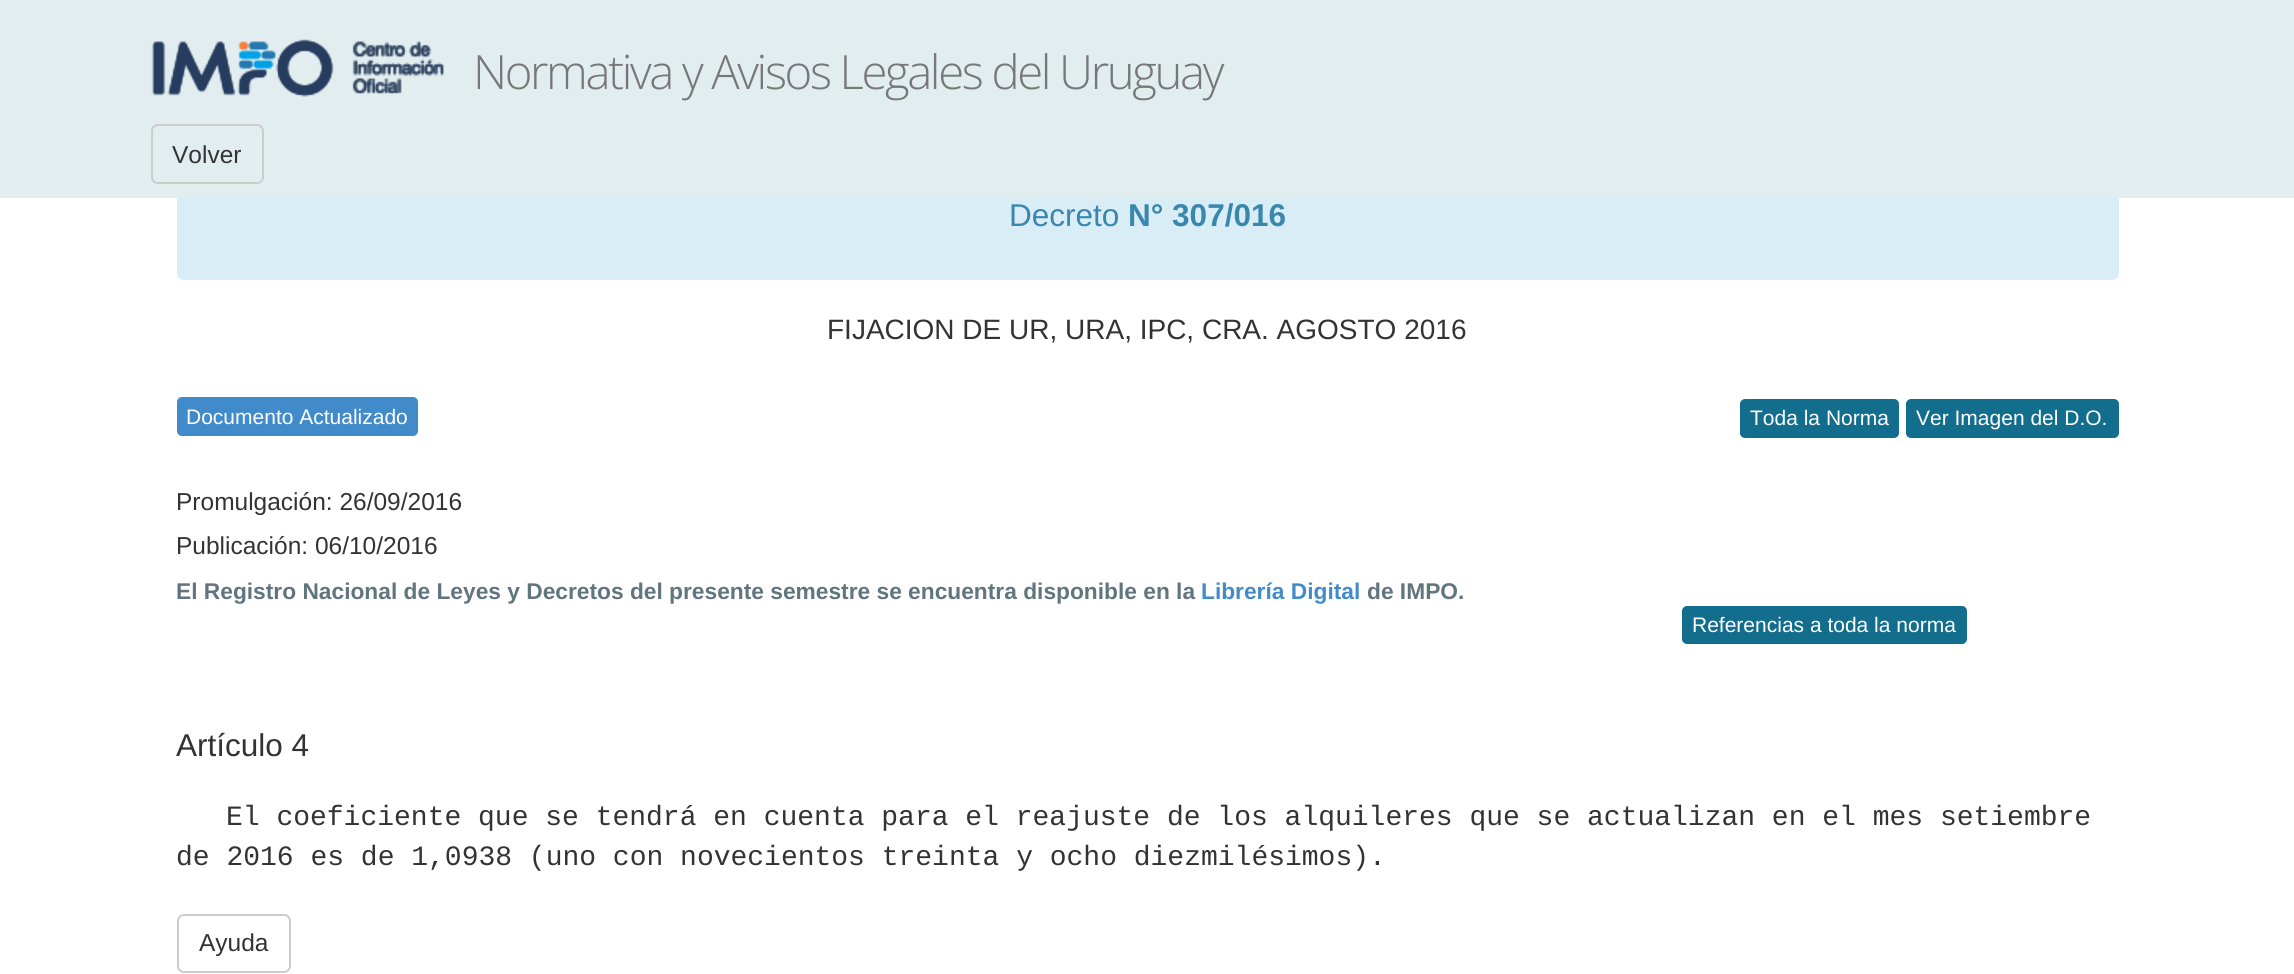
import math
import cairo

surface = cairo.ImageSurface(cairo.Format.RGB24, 2294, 974)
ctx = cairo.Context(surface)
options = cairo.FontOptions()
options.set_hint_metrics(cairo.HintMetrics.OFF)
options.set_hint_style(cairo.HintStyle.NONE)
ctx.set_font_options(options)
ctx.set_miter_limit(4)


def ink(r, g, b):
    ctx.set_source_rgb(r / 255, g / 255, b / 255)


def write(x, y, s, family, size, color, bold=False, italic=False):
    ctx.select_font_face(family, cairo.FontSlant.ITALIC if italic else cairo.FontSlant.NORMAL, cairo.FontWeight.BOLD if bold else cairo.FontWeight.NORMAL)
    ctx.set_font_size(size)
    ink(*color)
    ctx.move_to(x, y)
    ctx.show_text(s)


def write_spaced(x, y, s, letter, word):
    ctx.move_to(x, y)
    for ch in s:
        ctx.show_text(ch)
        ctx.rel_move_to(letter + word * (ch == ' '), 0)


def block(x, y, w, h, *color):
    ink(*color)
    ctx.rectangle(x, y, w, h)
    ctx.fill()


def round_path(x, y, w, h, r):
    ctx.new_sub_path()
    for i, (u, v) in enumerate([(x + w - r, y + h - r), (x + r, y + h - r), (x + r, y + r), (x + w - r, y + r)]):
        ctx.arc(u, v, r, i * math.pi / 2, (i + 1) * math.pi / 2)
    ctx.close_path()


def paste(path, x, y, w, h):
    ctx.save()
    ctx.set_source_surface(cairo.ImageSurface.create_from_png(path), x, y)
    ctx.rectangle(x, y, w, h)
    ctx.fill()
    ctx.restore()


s1 = dict(family="Liberation Sans", size=24.5, color=(51, 51, 51))
s2 = dict(family="Liberation Sans", size=31.5, color=(58, 135, 173))
s3 = dict(family="Liberation Sans", size=31.5, color=(58, 135, 173), bold=True)
s4 = dict(family="Liberation Sans", size=28, color=(51, 51, 51))
s5 = dict(family="Liberation Sans", size=21, color=(255, 255, 255))
s6 = dict(family="Liberation Sans", size=22.75, color=(96, 117, 126), bold=True)
s7 = dict(family="Liberation Sans", size=22.75, color=(66, 139, 202), bold=True)
s8 = dict(family="Liberation Sans", size=31.5, color=(51, 51, 51))
s9 = dict(family="Liberation Mono", size=28, color=(51, 51, 51))

ink(255, 255, 255)
ctx.paint()
ink(217, 237, 247)
round_path(177, 154, 1942, 126, 7)
ctx.fill()
block(0, 0, 2294, 198, 226, 237, 240)
paste("pic1.png", 151, 39, 293, 58)
paste("pic2.png", 152, 39, 292, 58)
ctx.select_font_face("Open Sans Light")
ctx.set_font_size(47.25)
ink(119, 119, 119)
write_spaced(473, 89, "Normativa y Avisos Legales del Uruguay", -2.35, 0)
round_path(152, 125, 111, 58, 6)
ink(204, 204, 204)
ctx.stroke()
write(172, 163, "Volver", **s1)
write(1009, 226, "Decreto", **s2)
write(1128, 226, "N° 307/016", **s3)
write(827, 339, "FIJACION DE UR, URA, IPC, CRA. AGOSTO 2016", **s4)
ink(66, 139, 202)
round_path(177, 397, 241, 39, 5)
ctx.fill()
write(186, 424, "Documento Actualizado", **s5)
ink(19, 109, 141)
round_path(1741, 400, 157, 37, 4)
ctx.fill_preserve()
ctx.stroke()
write(1750, 425, "Toda la Norma", **s5)
ink(19, 109, 141)
round_path(1907, 400, 211, 37, 4)
ctx.fill_preserve()
ctx.stroke()
write(1916, 425, "Ver Imagen del D.O.", **s5)
write(176, 510, "Promulgación: 26/09/2016", **s1)
write(176, 554, "Publicación: 06/10/2016", **s1)
write(176, 599, "El Registro Nacional de Leyes y Decretos del presente semestre se encuentra disponible en la", **s6)
write(1201, 599, "Librería Digital", **s7)
write(1367, 599, "de IMPO.", **s6)
ink(19, 109, 141)
round_path(1683, 607, 283, 36, 4)
ctx.fill_preserve()
ctx.stroke()
write(1692, 632, "Referencias a toda la norma", **s5)
write(176, 756, "Artículo 4", **s8)
write(226, 825, "El coeficiente que se tendrá en cuenta para el reajuste de los alquileres que se actualizan en el mes setiembre", **s9)
write(176, 865, "de 2016 es de 1,0938 (uno con novecientos treinta y ocho diezmilésimos).", **s9)
round_path(178, 915, 112, 57, 6)
ink(204, 204, 204)
ctx.stroke()
write(199, 951, "Ayuda", **s1)
surface.write_to_png("screenshot.png")
